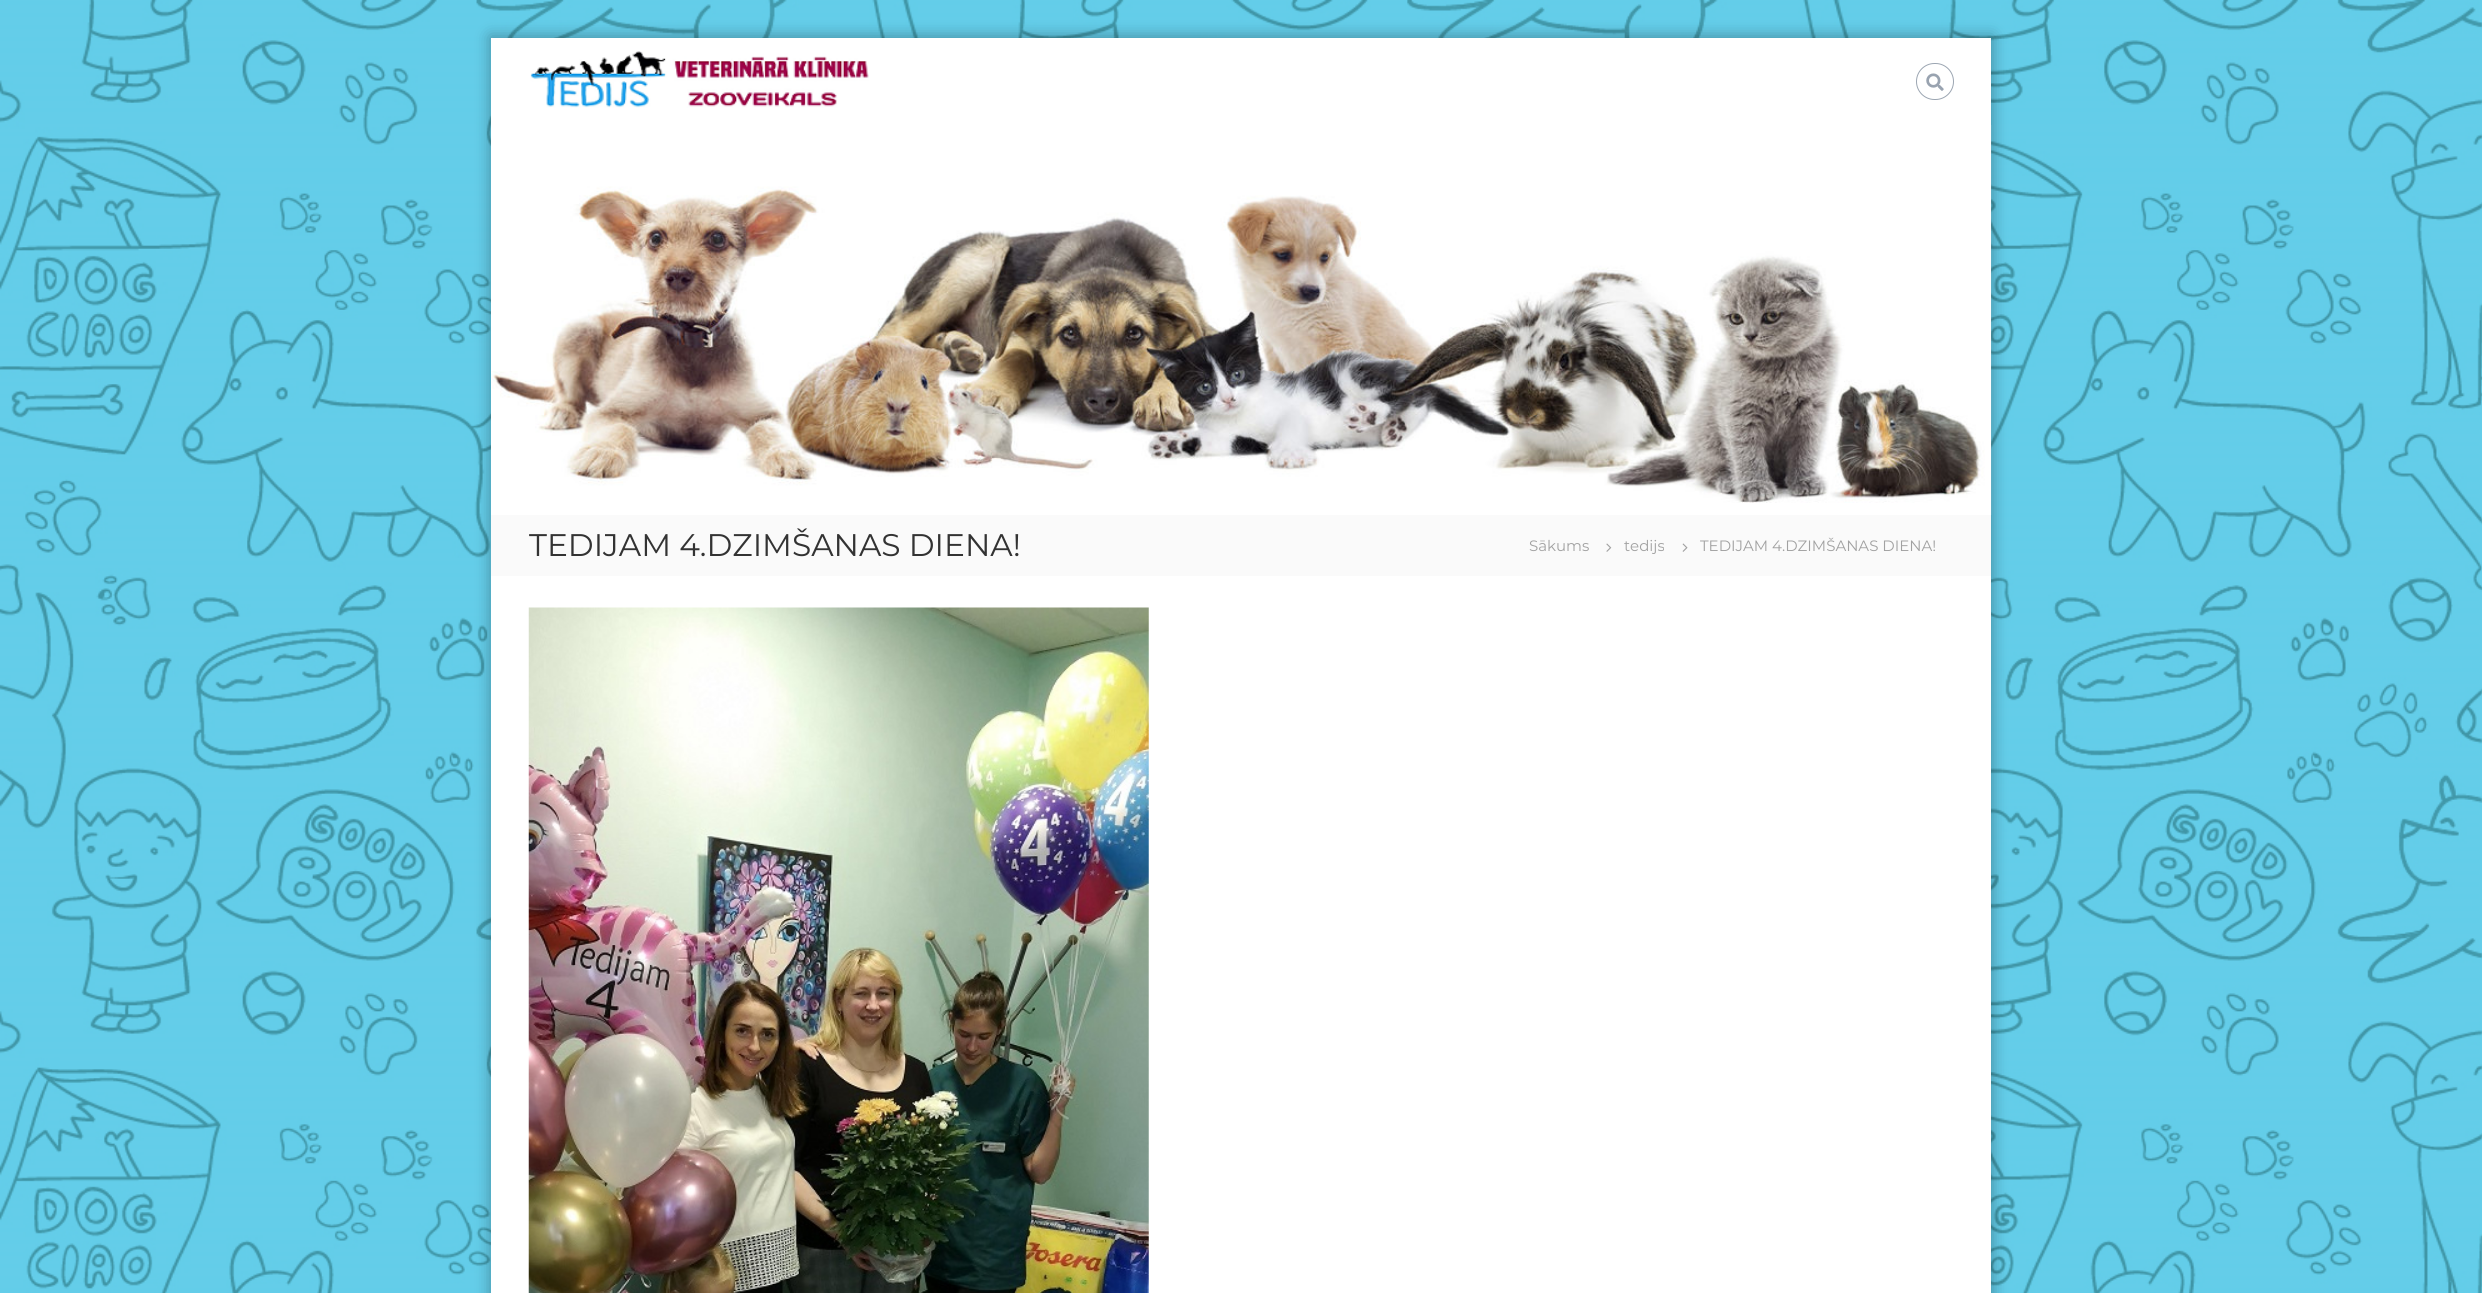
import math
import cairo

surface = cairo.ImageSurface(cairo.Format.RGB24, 2482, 1293)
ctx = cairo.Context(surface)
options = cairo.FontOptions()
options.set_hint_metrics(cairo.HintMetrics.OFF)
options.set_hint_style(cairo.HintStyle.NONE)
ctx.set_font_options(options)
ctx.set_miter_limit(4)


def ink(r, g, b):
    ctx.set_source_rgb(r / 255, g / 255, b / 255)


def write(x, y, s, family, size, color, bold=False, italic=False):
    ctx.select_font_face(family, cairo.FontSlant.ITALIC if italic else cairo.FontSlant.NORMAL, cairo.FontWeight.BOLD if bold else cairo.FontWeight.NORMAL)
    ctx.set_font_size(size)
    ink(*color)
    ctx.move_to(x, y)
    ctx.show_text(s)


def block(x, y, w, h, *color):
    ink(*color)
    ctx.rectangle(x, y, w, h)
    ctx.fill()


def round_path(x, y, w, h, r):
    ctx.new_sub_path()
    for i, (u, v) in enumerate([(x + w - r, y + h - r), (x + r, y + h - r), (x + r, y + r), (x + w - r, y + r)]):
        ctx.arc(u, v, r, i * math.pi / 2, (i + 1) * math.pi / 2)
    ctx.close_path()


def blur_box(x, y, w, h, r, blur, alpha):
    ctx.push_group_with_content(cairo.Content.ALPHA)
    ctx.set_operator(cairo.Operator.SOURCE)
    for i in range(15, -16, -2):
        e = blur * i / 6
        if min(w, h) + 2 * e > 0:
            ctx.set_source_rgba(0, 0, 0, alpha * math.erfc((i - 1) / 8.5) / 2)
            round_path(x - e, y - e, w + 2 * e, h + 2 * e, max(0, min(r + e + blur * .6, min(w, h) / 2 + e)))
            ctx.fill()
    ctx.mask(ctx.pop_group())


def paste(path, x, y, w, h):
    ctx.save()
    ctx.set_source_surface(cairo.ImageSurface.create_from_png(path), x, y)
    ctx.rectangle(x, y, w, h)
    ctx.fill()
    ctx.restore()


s1 = dict(family="Montserrat Thin", size=31.25, color=(51, 51, 51))
s2 = dict(family="Montserrat Thin", size=15, color=(161, 161, 161))

ink(255, 255, 255)
ctx.paint()
paste("pic1.png", 0, 0, 2482, 1293)
ink(0, 0, 0)
blur_box(490, 36, 1503, 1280, 0, 7.5, 0.3)
block(491, 38, 1500, 1255, 255, 255, 255)
paste("pic2.png", 530, 51, 339, 57)
round_path(1916.5, 63.5, 37, 36, 18)
ink(156, 166, 178)
ctx.set_line_width(1)
ctx.stroke()
paste("pic3.png", 1926, 73, 18, 18)
paste("pic4.png", 491, 125, 1501, 390)
block(491, 515, 1500, 61, 250, 250, 250)
write(529, 556, "TEDIJAM 4.DZIMŠANAS DIENA!", **s1)
write(1529, 551, "Sākums", **s2)
paste("pic5.png", 1606, 543, 6, 9)
write(1624, 551, "tedijs", **s2)
paste("pic6.png", 1682, 543, 6, 9)
write(1700, 551, "TEDIJAM 4.DZIMŠANAS DIENA!", **s2)
paste("pic7.png", 528, 607, 621, 686)
surface.write_to_png("screenshot.png")
